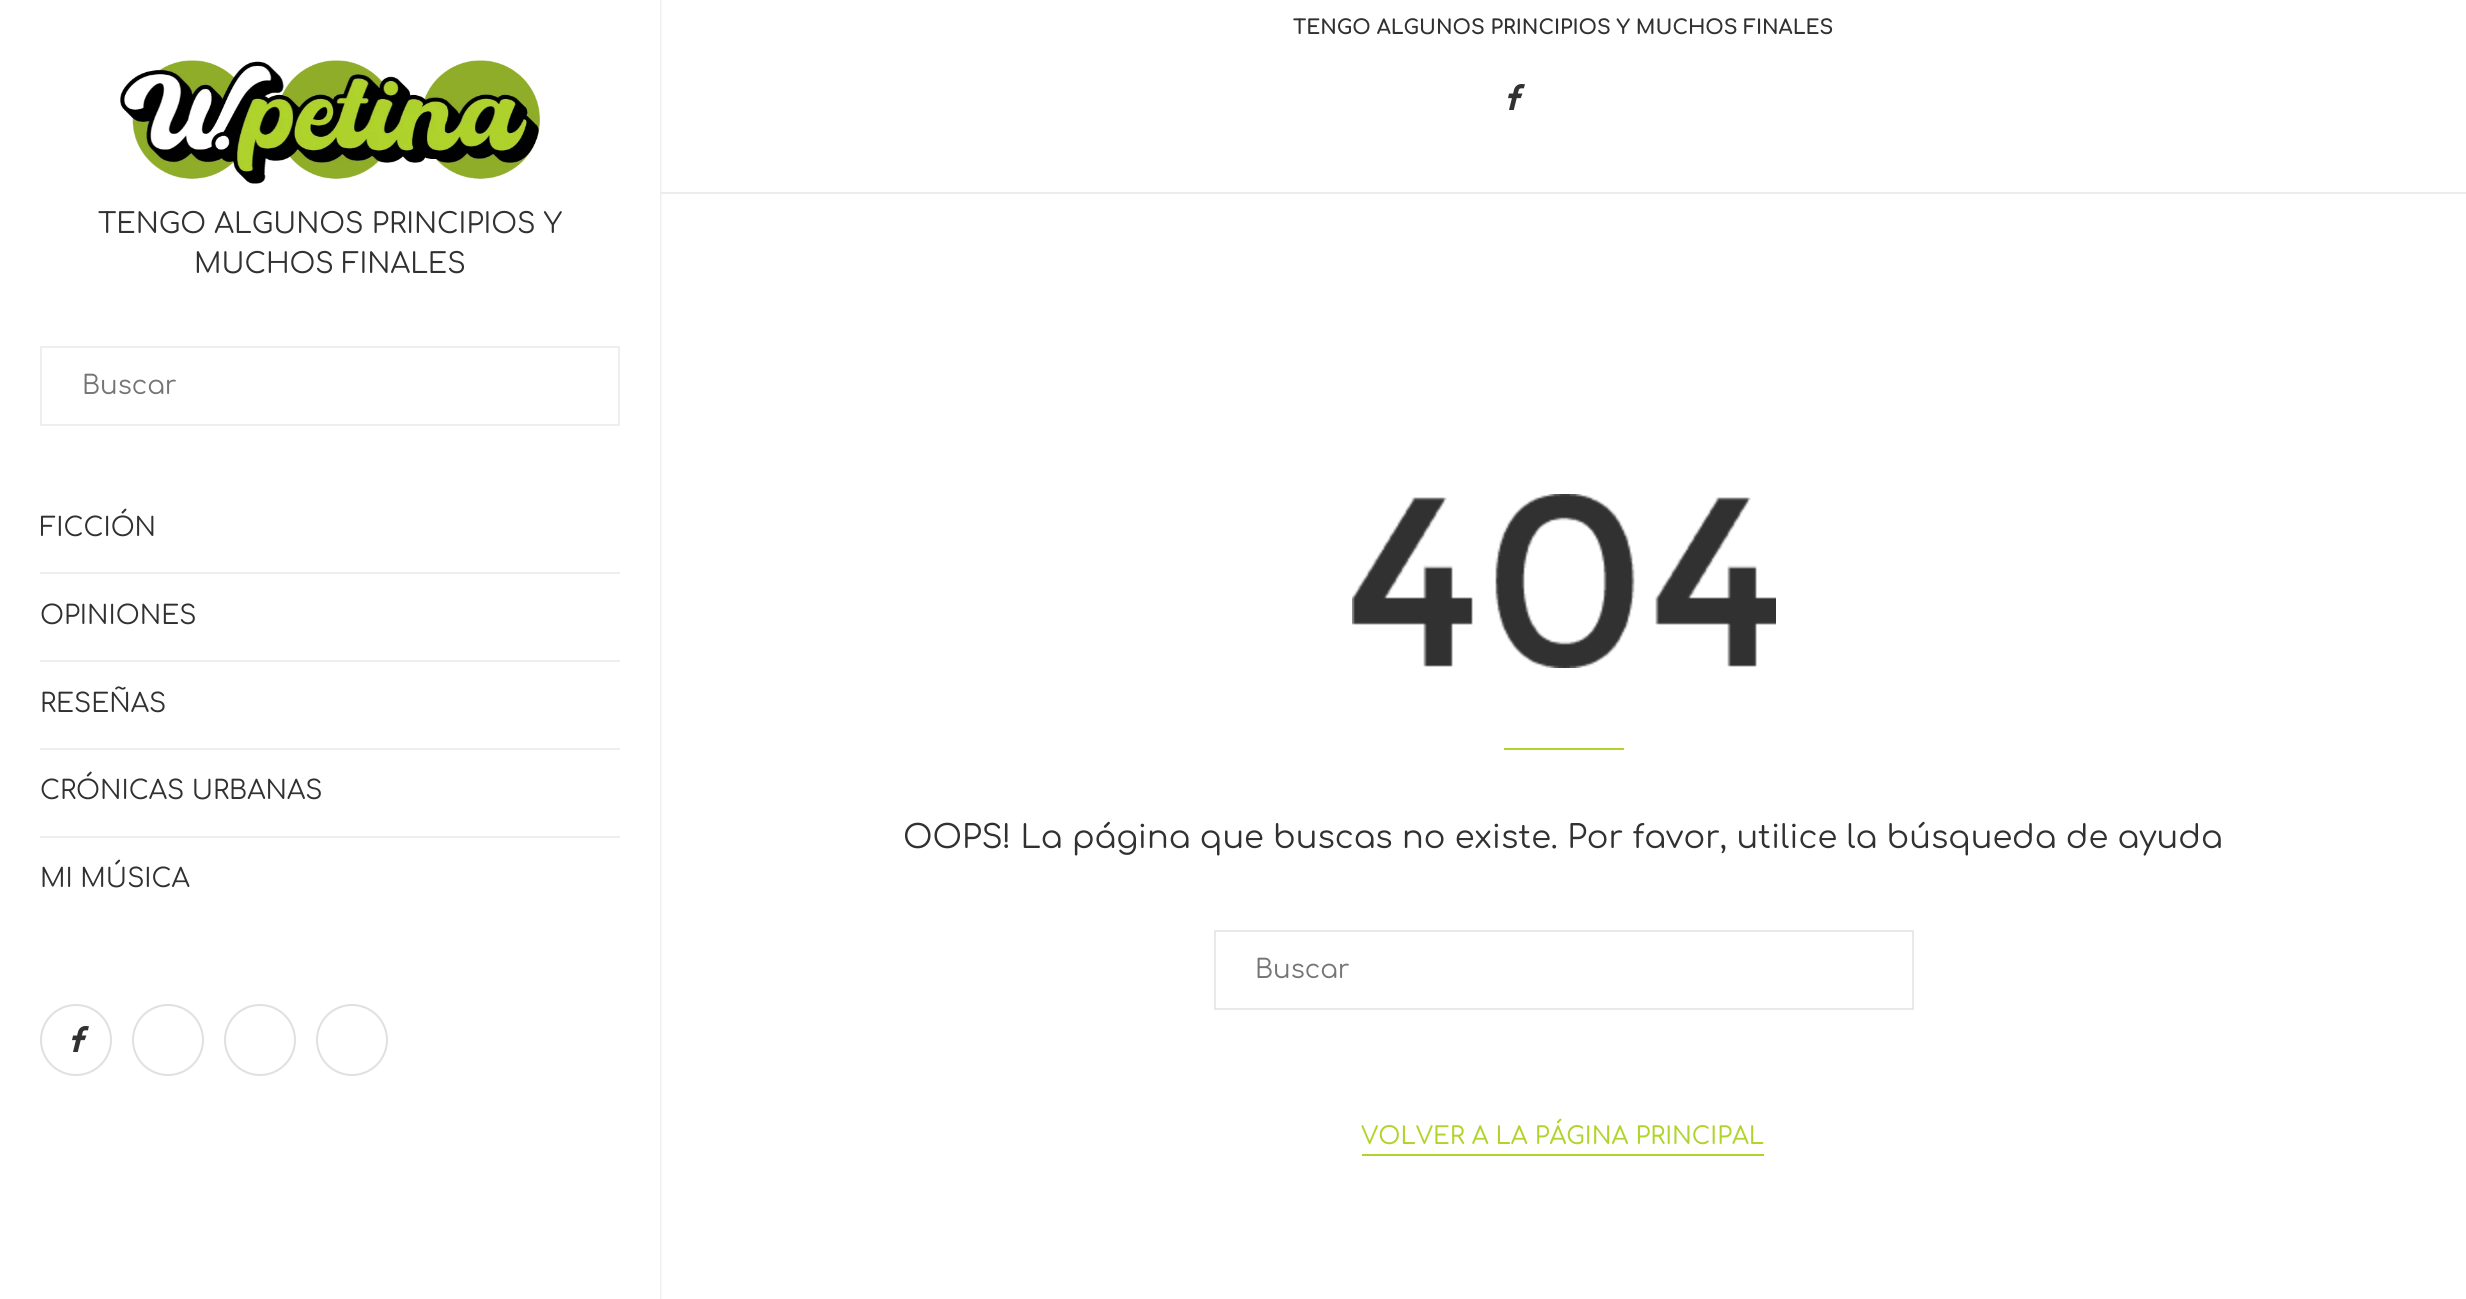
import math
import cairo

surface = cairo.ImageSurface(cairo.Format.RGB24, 2466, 1299)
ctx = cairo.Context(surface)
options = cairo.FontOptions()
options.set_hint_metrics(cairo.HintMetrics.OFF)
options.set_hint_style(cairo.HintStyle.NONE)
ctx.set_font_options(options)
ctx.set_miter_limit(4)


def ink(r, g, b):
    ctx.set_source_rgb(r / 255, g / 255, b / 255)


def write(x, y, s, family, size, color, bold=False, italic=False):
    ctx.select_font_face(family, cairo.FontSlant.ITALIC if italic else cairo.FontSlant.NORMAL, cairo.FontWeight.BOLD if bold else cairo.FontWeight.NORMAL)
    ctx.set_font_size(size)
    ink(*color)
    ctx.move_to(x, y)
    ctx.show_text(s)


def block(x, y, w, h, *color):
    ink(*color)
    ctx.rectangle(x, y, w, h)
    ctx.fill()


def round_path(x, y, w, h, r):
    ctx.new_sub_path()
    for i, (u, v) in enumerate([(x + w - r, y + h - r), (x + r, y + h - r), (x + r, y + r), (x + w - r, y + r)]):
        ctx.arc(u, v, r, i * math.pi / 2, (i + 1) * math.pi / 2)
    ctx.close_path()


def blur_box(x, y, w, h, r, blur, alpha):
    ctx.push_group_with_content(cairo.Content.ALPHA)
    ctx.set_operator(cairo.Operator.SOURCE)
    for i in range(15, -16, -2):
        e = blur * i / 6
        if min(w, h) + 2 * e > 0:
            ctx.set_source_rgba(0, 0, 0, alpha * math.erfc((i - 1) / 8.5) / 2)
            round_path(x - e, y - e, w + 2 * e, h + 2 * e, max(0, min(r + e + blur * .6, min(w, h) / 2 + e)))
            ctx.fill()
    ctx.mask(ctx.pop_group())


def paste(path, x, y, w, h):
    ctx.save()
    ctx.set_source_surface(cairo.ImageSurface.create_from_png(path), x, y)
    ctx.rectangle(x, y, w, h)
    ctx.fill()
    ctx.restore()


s1 = dict(family="Comfortaa", size=28, color=(49, 49, 49))
s2 = dict(family="Comfortaa", size=26, color=(117, 117, 117))
s3 = dict(family="Comfortaa", size=26, color=(49, 49, 49))
s4 = dict(family="Comfortaa", size=20, color=(49, 49, 49), bold=True)
s5 = dict(family="Comfortaa", size=32, color=(49, 49, 49))
s6 = dict(family="Comfortaa Medium", size=24, color=(177, 211, 43))

ink(255, 255, 255)
ctx.paint()
ctx.save()
ctx.rectangle(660, 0, 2, 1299)
ctx.clip()
ink(0, 0, 0)
blur_box(0, 0, 660, 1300, 0, 2, 0.15)
ctx.restore()
paste("pic1.png", 120, 60, 420, 124)
write(98, 233, "TENGO ALGUNOS PRINCIPIOS Y", **s1)
write(194, 273, "MUCHOS FINALES", **s1)
ctx.rectangle(41, 347, 578, 78)
ink(238, 238, 238)
ctx.stroke()
write(82, 394, "Buscar", **s2)
block(40, 572, 580, 2, 238, 238, 238)
write(40, 536, "FICCIÓN", **s3)
block(40, 660, 580, 2, 238, 238, 238)
write(40, 624, "OPINIONES", **s3)
block(40, 748, 580, 2, 238, 238, 238)
write(40, 712, "RESEÑAS", **s3)
block(40, 836, 580, 2, 238, 238, 238)
write(40, 799, "CRÓNICAS URBANAS", **s3)
write(40, 887, "MI MÚSICA", **s3)
ctx.new_path()
ctx.arc(76, 1040, 35, 0, 2 * math.pi)
ink(224, 224, 224)
ctx.stroke()
paste("pic2.png", 72, 1026, 17, 26)
ctx.arc(168, 1040, 35, 0, 2 * math.pi)
ctx.stroke()
ctx.arc(260, 1040, 35, 0, 2 * math.pi)
ctx.stroke()
ctx.arc(352, 1040, 35, 0, 2 * math.pi)
ctx.stroke()
block(660, 192, 1806, 2, 236, 236, 236)
write(1293, 34, "TENGO ALGUNOS PRINCIPIOS Y MUCHOS FINALES", **s4)
paste("pic2.png", 1508, 84, 17, 26)
paste("pic3.png", 1352, 494, 424, 174)
block(1504, 748, 120, 2, 177, 211, 43)
write(903, 848, "OOPS! La página que buscas no existe. Por favor, utilice la búsqueda de ayuda", **s5)
ctx.rectangle(1215, 931, 698, 78)
ink(233, 233, 233)
ctx.stroke()
write(1255, 978, "Buscar", **s2)
write(1361, 1144, "VOLVER A LA PÁGINA PRINCIPAL", **s6)
block(1362, 1154, 402, 2, 177, 211, 43)
surface.write_to_png("screenshot.png")
